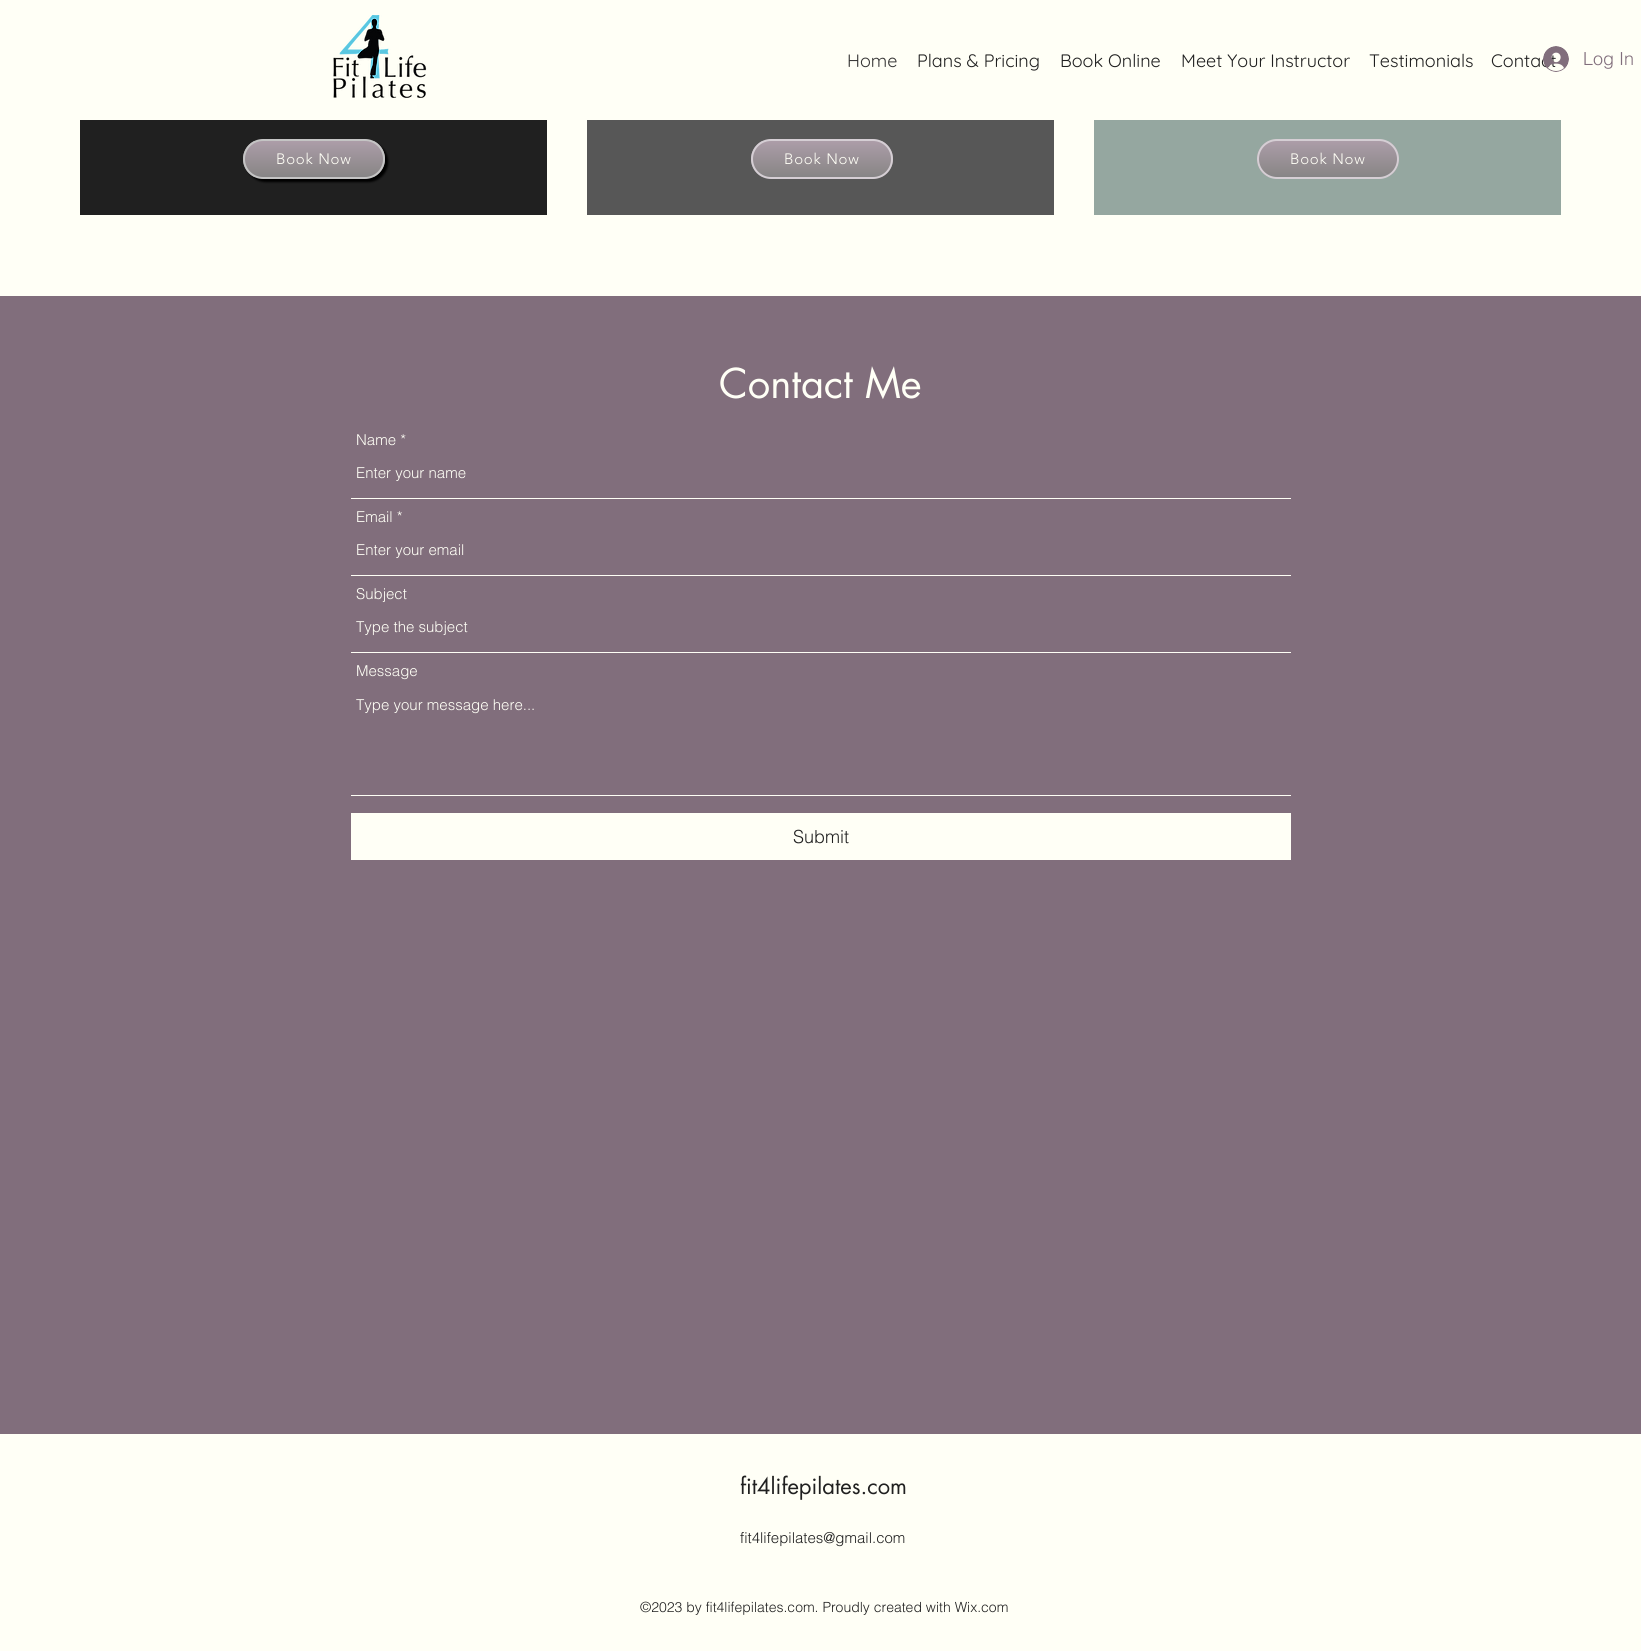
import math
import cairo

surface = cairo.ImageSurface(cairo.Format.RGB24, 1641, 1651)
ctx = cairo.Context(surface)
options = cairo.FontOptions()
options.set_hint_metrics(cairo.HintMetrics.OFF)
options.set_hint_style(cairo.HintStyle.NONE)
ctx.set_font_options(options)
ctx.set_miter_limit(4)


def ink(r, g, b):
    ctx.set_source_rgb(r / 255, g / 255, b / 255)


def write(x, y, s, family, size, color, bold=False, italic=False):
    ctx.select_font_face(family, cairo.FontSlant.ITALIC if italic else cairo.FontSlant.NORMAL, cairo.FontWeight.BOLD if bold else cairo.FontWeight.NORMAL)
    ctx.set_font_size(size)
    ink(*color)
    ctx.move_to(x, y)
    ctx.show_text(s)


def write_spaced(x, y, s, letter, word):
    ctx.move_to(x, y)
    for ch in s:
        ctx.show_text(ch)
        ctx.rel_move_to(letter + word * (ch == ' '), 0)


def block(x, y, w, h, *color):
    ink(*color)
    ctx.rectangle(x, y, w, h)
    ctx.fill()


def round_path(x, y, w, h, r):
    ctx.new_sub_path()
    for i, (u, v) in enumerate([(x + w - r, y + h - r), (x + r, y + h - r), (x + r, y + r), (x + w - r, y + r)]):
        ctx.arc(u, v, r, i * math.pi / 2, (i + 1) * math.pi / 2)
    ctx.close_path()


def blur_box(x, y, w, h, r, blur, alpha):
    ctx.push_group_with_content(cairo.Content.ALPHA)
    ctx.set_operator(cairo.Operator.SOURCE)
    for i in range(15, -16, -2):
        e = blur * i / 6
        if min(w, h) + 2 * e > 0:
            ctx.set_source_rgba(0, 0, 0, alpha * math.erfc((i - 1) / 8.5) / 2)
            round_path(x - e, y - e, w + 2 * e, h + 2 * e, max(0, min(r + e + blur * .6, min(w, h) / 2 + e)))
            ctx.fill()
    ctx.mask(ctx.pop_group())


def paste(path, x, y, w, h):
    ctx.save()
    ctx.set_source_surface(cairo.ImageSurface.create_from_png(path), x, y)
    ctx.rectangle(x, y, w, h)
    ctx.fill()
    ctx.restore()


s1 = dict(family="Quicksand", size=18, color=(54, 53, 53))
s2 = dict(family="Quicksand", size=18, color=(32, 32, 32))
s3 = dict(family="helvetica Light", size=18, color=(129, 110, 124))
s4 = dict(family="futura", size=40, color=(255, 255, 246))
s5 = dict(family="helvetica Light", size=15, color=(255, 255, 246))
s6 = dict(family="helvetica Light", size=18, color=(32, 32, 32))
s7 = dict(family="futura", size=22, color=(32, 32, 32))
s8 = dict(family="helvetica Light", size=15, color=(32, 32, 32))
s9 = dict(family="helvetica Light", size=14, color=(32, 32, 32))

ink(255, 255, 246)
ctx.paint()
paste("pic1.png", 333, 15, 94, 83)
write(847, 67, "Home", **s1)
write(917, 67, "Plans & Pricing", **s2)
write(1060, 67, "Book Online", **s2)
write(1181, 67, "Meet Your Instructor", **s2)
write(1369, 67, "Testimonials", **s2)
write(1491, 67, "Contact", **s2)
paste("pic2.png", 1543, 46, 26, 26)
write(1583, 65, "Log In", **s3)
block(80, 120, 467, 95, 32, 32, 32)
ink(0, 0, 0)
blur_box(246, 142, 142, 40, 20, 1, 1)
ctx.save()
round_path(243, 139, 142, 40, 20)
ctx.clip()
gradient = cairo.LinearGradient(314, 141, 314, 177)
gradient.add_color_stop_rgba(0, 0.675, 0.616, 0.659, 1)
gradient.add_color_stop_rgba(1, 0.529, 0.522, 0.522, 1)
ctx.set_source(gradient)
ctx.rectangle(243, 141, 142, 36)
ctx.fill()
ctx.restore()
round_path(244, 140, 140, 38, 19)
ink(196, 196, 196)
ctx.stroke()
ctx.select_font_face("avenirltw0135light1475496 Light")
ctx.set_font_size(15)
ink(255, 255, 246)
write_spaced(276, 164, "Book Now", 0.75, 0)
block(587, 120, 467, 95, 87, 87, 87)
ctx.save()
round_path(751, 139, 142, 40, 20)
ctx.clip()
gradient = cairo.LinearGradient(822, 141, 822, 177)
gradient.add_color_stop_rgba(0, 0.675, 0.616, 0.659, 1)
gradient.add_color_stop_rgba(1, 0.529, 0.522, 0.522, 1)
ctx.set_source(gradient)
ctx.rectangle(751, 141, 142, 36)
ctx.fill()
ctx.restore()
round_path(752, 140, 140, 38, 19)
ink(213, 206, 212)
ctx.stroke()
ink(255, 255, 246)
write_spaced(784, 164, "Book Now", 0.75, 0)
block(1094, 120, 467, 95, 149, 167, 160)
ctx.save()
round_path(1257, 139, 142, 40, 20)
ctx.clip()
gradient = cairo.LinearGradient(1328, 141, 1328, 177)
gradient.add_color_stop_rgba(0, 0.675, 0.616, 0.659, 1)
gradient.add_color_stop_rgba(1, 0.529, 0.522, 0.522, 1)
ctx.set_source(gradient)
ctx.rectangle(1257, 141, 142, 36)
ctx.fill()
ctx.restore()
round_path(1258, 140, 140, 38, 19)
ink(213, 206, 212)
ctx.stroke()
ink(255, 255, 246)
write_spaced(1290, 164, "Book Now", 0.75, 0)
block(0, 296, 1641, 1138, 129, 110, 124)
write(719, 398, "Contact Me", **s4)
write(356, 445, "Name *", **s5)
block(351, 498, 940, 1, 255, 255, 246)
write(356, 478, "Enter your name", **s5)
write(356, 522, "Email *", **s5)
block(351, 575, 940, 1, 255, 255, 246)
write(356, 555, "Enter your email", **s5)
write(356, 599, "Subject", **s5)
block(351, 652, 940, 1, 255, 255, 246)
write(356, 632, "Type the subject", **s5)
write(356, 676, "Message", **s5)
block(351, 795, 940, 1, 255, 255, 246)
write(356, 710, "Type your message here...", **s5)
block(351, 813, 940, 47, 255, 255, 246)
write(793, 843, "Submit", **s6)
write(740, 1494, "fit4lifepilates.com", **s7)
write(740, 1543, "fit4lifepilates@gmail.com", **s8)
write(640, 1612, "©2023 by fit4lifepilates.com. Proudly created with Wix.com", **s9)
surface.write_to_png("screenshot.png")
